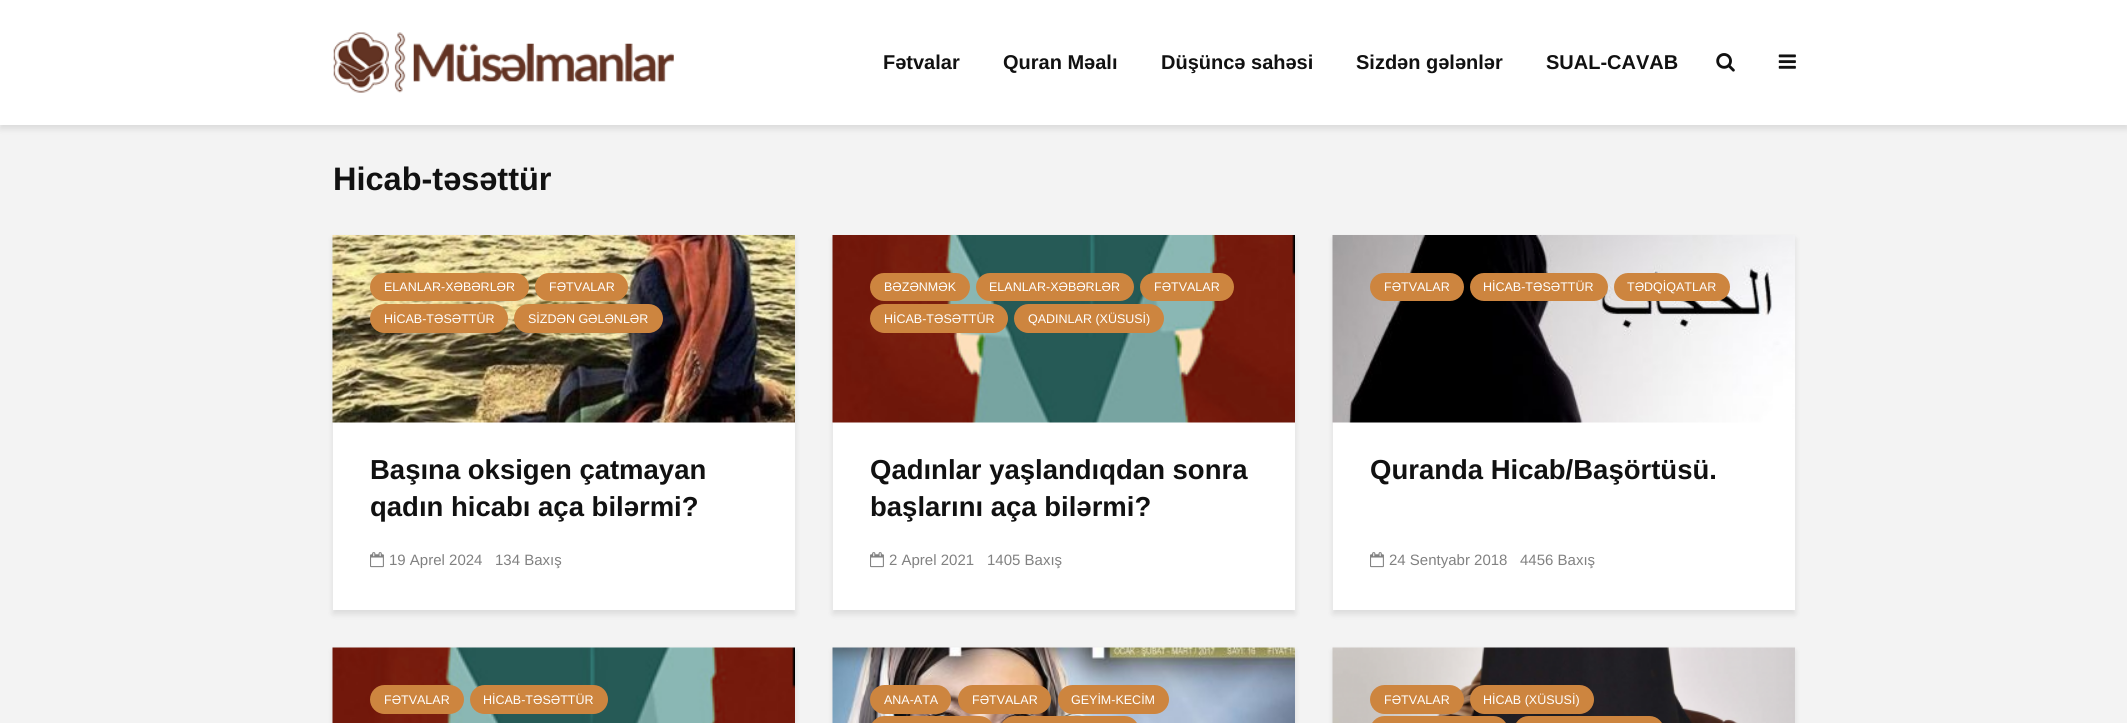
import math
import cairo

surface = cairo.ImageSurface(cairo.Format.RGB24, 2127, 723)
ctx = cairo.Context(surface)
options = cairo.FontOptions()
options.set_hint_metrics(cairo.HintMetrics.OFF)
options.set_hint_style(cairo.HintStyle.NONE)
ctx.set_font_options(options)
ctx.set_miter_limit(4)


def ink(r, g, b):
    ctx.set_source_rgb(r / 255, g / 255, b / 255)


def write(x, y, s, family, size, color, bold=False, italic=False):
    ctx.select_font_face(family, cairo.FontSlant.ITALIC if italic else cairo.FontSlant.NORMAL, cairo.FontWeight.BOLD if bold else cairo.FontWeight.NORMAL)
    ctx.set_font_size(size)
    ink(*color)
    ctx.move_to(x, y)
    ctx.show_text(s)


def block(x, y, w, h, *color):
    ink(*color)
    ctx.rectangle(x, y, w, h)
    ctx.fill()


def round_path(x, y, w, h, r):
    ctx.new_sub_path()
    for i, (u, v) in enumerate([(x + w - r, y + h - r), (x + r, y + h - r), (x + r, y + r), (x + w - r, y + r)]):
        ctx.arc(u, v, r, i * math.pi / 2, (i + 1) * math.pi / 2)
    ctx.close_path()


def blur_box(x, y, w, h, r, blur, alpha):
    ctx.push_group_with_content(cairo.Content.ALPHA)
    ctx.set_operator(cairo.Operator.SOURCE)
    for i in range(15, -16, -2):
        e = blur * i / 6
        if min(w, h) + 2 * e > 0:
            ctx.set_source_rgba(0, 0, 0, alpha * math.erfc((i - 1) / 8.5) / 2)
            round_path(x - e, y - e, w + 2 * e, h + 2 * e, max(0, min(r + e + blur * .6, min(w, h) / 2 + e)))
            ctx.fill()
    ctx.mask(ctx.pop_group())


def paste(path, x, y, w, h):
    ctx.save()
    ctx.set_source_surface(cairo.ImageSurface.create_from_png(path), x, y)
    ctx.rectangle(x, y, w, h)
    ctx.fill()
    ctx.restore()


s1 = dict(family="Liberation Sans", size=20, color=(17, 17, 17), bold=True)
s2 = dict(family="Liberation Sans", size=32.5, color=(17, 17, 17), bold=True)
s3 = dict(family="Liberation Sans", size=12.5, color=(255, 255, 255))
s4 = dict(family="Liberation Sans", size=27.5, color=(17, 17, 17), bold=True)
s5 = dict(family="Liberation Sans", size=15, color=(129, 129, 129))

ink(243, 243, 243)
ctx.paint()
ink(0, 1, 1)
blur_box(0, 4, 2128, 125, 0, 3, 0.1)
block(0, 0, 2127, 125, 255, 255, 255)
paste("pic1.png", 333, 32, 341, 61)
write(883, 69, "Fətvalar", **s1)
write(1003, 69, "Quran Məalı", **s1)
write(1161, 69, "Düşüncə sahəsi", **s1)
write(1356, 69, "Sizdən gələnlər", **s1)
write(1546, 69, "SUAL-CAVAB", **s1)
paste("pic2.png", 1716, 53, 19, 19)
paste("pic3.png", 1778, 54, 18, 15)
write(333, 190, "Hicab-təsəttür", **s2)
ink(0, 1, 1)
blur_box(333, 239, 462, 375, 0, 3, 0.1)
block(333, 422, 462, 188, 255, 255, 255)
paste("pic4.png", 332, 235, 463, 188)
ink(205, 133, 63)
round_path(370, 273, 159, 28, 14)
ctx.fill()
write(384, 291, "ELANLAR-XƏBƏRLƏR", **s3)
ink(205, 133, 63)
round_path(535, 273, 93, 28, 14)
ctx.fill()
write(549, 291, "FƏTVALAR", **s3)
ink(205, 133, 63)
round_path(370, 304, 138, 29, 14.5)
ctx.fill()
write(384, 323, "HİCAB-TƏSƏTTÜR", **s3)
ink(205, 133, 63)
round_path(514, 304, 149, 29, 14.5)
ctx.fill()
write(528, 323, "SİZDƏN GƏLƏNLƏR", **s3)
write(370, 479, "Başına oksigen çatmayan", **s4)
write(370, 516, "qadın hicabı aça bilərmi?", **s4)
paste("pic5.png", 370, 552, 14, 16)
write(389, 565, "19 Aprel 2024", **s5)
write(495, 565, "134 Baxış", **s5)
ink(0, 1, 1)
blur_box(833, 239, 462, 375, 0, 3, 0.1)
block(833, 422, 462, 188, 255, 255, 255)
paste("pic6.png", 832, 235, 463, 188)
ink(205, 133, 63)
round_path(870, 273, 100, 28, 14)
ctx.fill()
write(884, 291, "BƏZƏNMƏK", **s3)
ink(205, 133, 63)
round_path(976, 273, 158, 28, 14)
ctx.fill()
write(989, 291, "ELANLAR-XƏBƏRLƏR", **s3)
ink(205, 133, 63)
round_path(1140, 273, 94, 28, 14)
ctx.fill()
write(1154, 291, "FƏTVALAR", **s3)
ink(205, 133, 63)
round_path(870, 304, 138, 29, 14.5)
ctx.fill()
write(884, 323, "HİCAB-TƏSƏTTÜR", **s3)
ink(205, 133, 63)
round_path(1014, 304, 150, 29, 14.5)
ctx.fill()
write(1028, 323, "QADINLAR (XÜSUSİ)", **s3)
write(870, 479, "Qadınlar yaşlandıqdan sonra", **s4)
write(870, 516, "başlarını aça bilərmi?", **s4)
paste("pic5.png", 870, 552, 14, 16)
write(889, 565, "2 Aprel 2021", **s5)
write(987, 565, "1405 Baxış", **s5)
ink(0, 1, 1)
blur_box(1333, 239, 462, 375, 0, 3, 0.1)
block(1333, 422, 462, 188, 255, 255, 255)
paste("pic7.png", 1332, 235, 463, 188)
ink(205, 133, 63)
round_path(1370, 273, 94, 28, 14)
ctx.fill()
write(1384, 291, "FƏTVALAR", **s3)
ink(205, 133, 63)
round_path(1470, 273, 138, 28, 14)
ctx.fill()
write(1483, 291, "HİCAB-TƏSƏTTÜR", **s3)
ink(205, 133, 63)
round_path(1614, 273, 116, 28, 14)
ctx.fill()
write(1627, 291, "TƏDQİQATLAR", **s3)
write(1370, 479, "Quranda Hicab/Başörtüsü.", **s4)
paste("pic5.png", 1370, 552, 14, 16)
write(1389, 565, "24 Sentyabr 2018", **s5)
write(1520, 565, "4456 Baxış", **s5)
ink(0, 1, 1)
blur_box(333, 651, 462, 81, 0, 3, 0.1)
paste("pic8.png", 332, 647, 463, 76)
ink(205, 133, 63)
round_path(370, 685, 94, 29, 14.5)
ctx.fill()
write(384, 704, "FƏTVALAR", **s3)
ink(205, 133, 63)
round_path(470, 685, 138, 29, 14.5)
ctx.fill()
write(483, 704, "HİCAB-TƏSƏTTÜR", **s3)
ink(0, 1, 1)
blur_box(833, 651, 462, 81, 0, 3, 0.1)
paste("pic9.png", 832, 647, 463, 76)
ink(205, 133, 63)
round_path(870, 685, 81, 29, 14.5)
ctx.fill()
write(884, 704, "ANA-ATA", **s3)
ink(205, 133, 63)
round_path(958, 685, 93, 29, 14.5)
ctx.fill()
write(972, 704, "FƏTVALAR", **s3)
ink(205, 133, 63)
round_path(1058, 685, 111, 29, 14.5)
ctx.fill()
write(1071, 704, "GEYİM-KECİM", **s3)
ink(205, 133, 63)
round_path(870, 716, 124, 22, 14.5)
ctx.fill()
round_path(1000, 716, 139, 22, 14.5)
ctx.fill()
ink(0, 1, 1)
blur_box(1333, 651, 462, 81, 0, 3, 0.1)
paste("pic10.png", 1332, 647, 463, 76)
ink(205, 133, 63)
round_path(1370, 685, 94, 29, 14.5)
ctx.fill()
write(1384, 704, "FƏTVALAR", **s3)
ink(205, 133, 63)
round_path(1470, 685, 124, 29, 14.5)
ctx.fill()
write(1483, 704, "HİCAB (XÜSUSİ)", **s3)
ink(205, 133, 63)
round_path(1370, 716, 138, 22, 14.5)
ctx.fill()
round_path(1514, 716, 150, 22, 14.5)
ctx.fill()
surface.write_to_png("screenshot.png")
